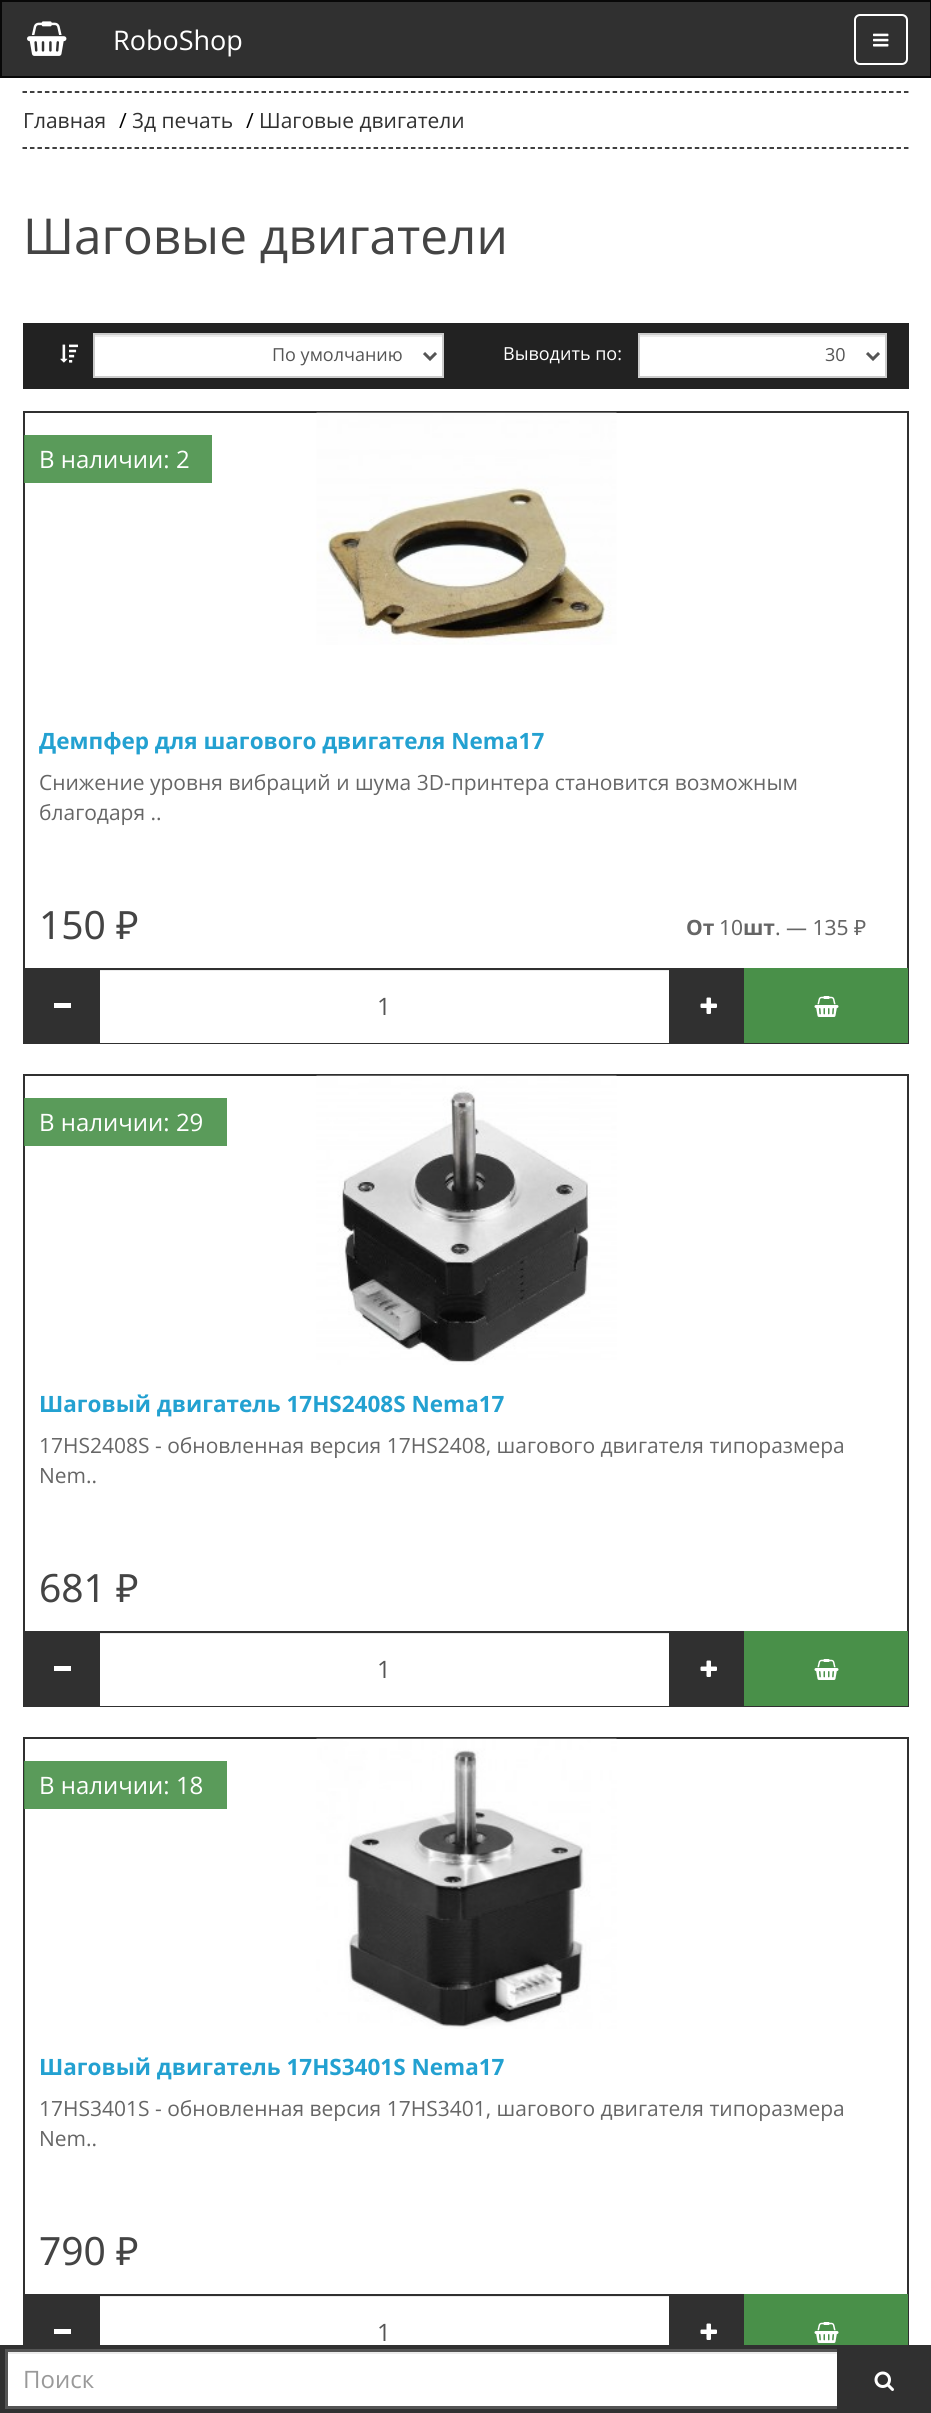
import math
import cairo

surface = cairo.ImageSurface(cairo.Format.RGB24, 931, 2413)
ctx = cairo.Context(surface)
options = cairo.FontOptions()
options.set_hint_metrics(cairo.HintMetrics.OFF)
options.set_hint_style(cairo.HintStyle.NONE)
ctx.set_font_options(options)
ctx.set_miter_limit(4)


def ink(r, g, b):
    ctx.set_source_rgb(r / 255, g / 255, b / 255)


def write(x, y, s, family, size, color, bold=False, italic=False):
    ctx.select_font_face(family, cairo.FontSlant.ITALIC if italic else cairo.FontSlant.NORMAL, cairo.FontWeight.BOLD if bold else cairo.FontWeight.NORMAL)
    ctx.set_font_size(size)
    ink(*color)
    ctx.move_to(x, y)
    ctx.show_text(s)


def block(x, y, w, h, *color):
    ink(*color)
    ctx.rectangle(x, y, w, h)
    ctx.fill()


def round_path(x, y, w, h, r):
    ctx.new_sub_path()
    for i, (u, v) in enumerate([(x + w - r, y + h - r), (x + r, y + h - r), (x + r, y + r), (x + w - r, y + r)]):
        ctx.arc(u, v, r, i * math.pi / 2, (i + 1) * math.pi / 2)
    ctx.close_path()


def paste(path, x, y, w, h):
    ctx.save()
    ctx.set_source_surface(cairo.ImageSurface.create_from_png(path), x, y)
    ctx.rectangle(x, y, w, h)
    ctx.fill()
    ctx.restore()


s1 = dict(family="Open Sans", size=27, color=(255, 255, 255))
s2 = dict(family="Open Sans", size=21, color=(48, 48, 48))
s3 = dict(family="Open Sans", size=21, color=(0, 0, 0))
s4 = dict(family="Open Sans", size=49.5, color=(68, 68, 68))
s5 = dict(family="Open Sans", size=18, color=(85, 85, 85))
s6 = dict(family="Open Sans", size=18, color=(255, 255, 255))
s7 = dict(family="Open Sans", size=24, color=(255, 255, 255))
s8 = dict(family="Open Sans", size=22.5, color=(35, 161, 209), bold=True)
s9 = dict(family="Open Sans", size=21, color=(102, 102, 102))
s10 = dict(family="Noto Sans", size=39, color=(68, 68, 68))
s11 = dict(family="Open Sans", size=21, color=(102, 102, 102), bold=True)
s12 = dict(family="Noto Sans", size=21, color=(102, 102, 102))
s13 = dict(family="Open Sans", size=24, color=(85, 85, 85))
s14 = dict(family="Open Sans", size=24, color=(153, 153, 153))

ink(255, 255, 255)
ctx.paint()
ink(48, 48, 48)
ctx.rectangle(1, 1, 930, 76)
ctx.fill_preserve()
ink(8, 8, 8)
ctx.stroke()
paste("pic1.png", 27, 21, 40, 35)
write(113, 50, "RoboShop", **s1)
ink(89, 89, 89)
ctx.new_path()
ctx.move_to(860, 16)
ctx.line_to(902, 16)
ctx.curve_to(904, 16, 906, 19, 906, 21)
ctx.curve_to(906, 14, 900, 15, 894, 15)
ctx.line_to(867, 15)
ctx.curve_to(861, 15, 855, 14, 855, 21)
ctx.curve_to(855, 19, 857, 16, 860, 16)
ctx.close_path()
ctx.fill()
round_path(855, 15, 52, 49, 5)
ink(255, 255, 255)
ctx.stroke()
paste("pic2.png", 873, 33, 16, 14)
ctx.new_path()
ctx.move_to(22.5, 92)
ctx.line_to(909, 92)
ink(0, 0, 0)
ctx.set_line_width(1.5)
ctx.set_dash([4.5, 2.97])
ctx.stroke()
ctx.new_path()
ctx.move_to(22.5, 148)
ctx.line_to(909, 148)
ctx.stroke()
write(23, 128, "Главная", **s2)
write(119, 128, "/", **s3)
write(132, 128, "3д печать", **s2)
write(246, 128, "/", **s3)
write(259, 128, "Шаговые двигатели", **s2)
write(23, 254, "Шаговые двигатели", **s4)
block(23, 323, 886, 66, 34, 34, 34)
paste("pic3.png", 60, 344, 18, 19)
block(95, 337, 347, 39, 255, 255, 255)
block(95, 335, 348, 2, 236, 236, 236)
ctx.rectangle(94, 334, 349, 43)
ink(204, 204, 204)
ctx.set_line_width(2)
ctx.set_dash([])
ctx.stroke()
ctx.new_path()
ctx.move_to(424, 353)
ctx.line_to(430, 359)
ctx.line_to(436, 353)
ink(85, 85, 85)
ctx.set_line_width(3)
ctx.stroke()
write(272, 361, "По умолчанию", **s5)
write(503, 360, "Выводить по:", **s6)
block(640, 337, 245, 39, 255, 255, 255)
block(639, 335, 246, 2, 236, 236, 236)
ctx.rectangle(639, 334, 247, 43)
ink(204, 204, 204)
ctx.set_line_width(2)
ctx.stroke()
ctx.new_path()
ctx.move_to(867, 353)
ctx.line_to(873, 359)
ctx.line_to(879, 353)
ink(85, 85, 85)
ctx.set_line_width(3)
ctx.stroke()
write(825, 361, "30", **s5)
ctx.rectangle(24, 412, 884, 631)
ink(48, 48, 48)
ctx.set_line_width(2)
ctx.stroke()
ctx.set_source_rgba(0.286, 0.565, 0.286, 0.9)
ctx.rectangle(24, 435, 188, 48)
ctx.fill()
write(39, 468, "В наличии: 2", **s7)
paste("pic4.png", 316, 412, 301, 233)
write(39, 749, "Демпфер для шагового двигателя Nema17", **s8)
write(39, 790, "Снижение уровня вибраций и шума 3D-принтера становится возможным", **s9)
write(39, 820, "благодаря ..", **s9)
write(39, 939, "150 ₽", **s10)
write(686, 935, "От", **s11)
write(719, 935, "10", **s12)
write(743, 935, "шт", **s11)
write(775, 935, ". — 135 ₽", **s12)
block(25, 968, 73, 74, 48, 48, 48)
block(54, 1003, 17, 5, 255, 255, 255)
block(100, 1042, 569, 1, 255, 255, 255)
block(99, 970, 570, 1, 236, 236, 236)
block(98, 968, 573, 2, 48, 48, 48)
block(669, 968, 2, 75, 48, 48, 48)
block(98, 968, 2, 75, 48, 48, 48)
write(377, 1015, "1", **s13)
block(671, 968, 73, 74, 48, 48, 48)
paste("pic5.png", 700, 997, 17, 17)
block(744, 968, 164, 75, 73, 144, 73)
paste("pic6.png", 814, 996, 25, 21)
ctx.rectangle(24, 1075, 884, 631)
ink(48, 48, 48)
ctx.stroke()
ctx.set_source_rgba(0.286, 0.565, 0.286, 0.9)
ctx.rectangle(24, 1098, 203, 48)
ctx.fill()
write(39, 1131, "В наличии: 29", **s7)
paste("pic7.png", 316, 1075, 301, 290)
write(39, 1412, "Шаговый двигатель 17HS2408S Nema17", **s8)
write(39, 1453, "17HS2408S - обновленная версия 17HS2408, шагового двигателя типоразмера", **s9)
write(39, 1483, "Nem..", **s9)
write(39, 1602, "681 ₽", **s10)
block(25, 1631, 73, 74, 48, 48, 48)
block(54, 1666, 17, 5, 255, 255, 255)
block(100, 1705, 569, 1, 255, 255, 255)
block(99, 1633, 570, 1, 236, 236, 236)
block(98, 1631, 573, 2, 48, 48, 48)
block(669, 1631, 2, 75, 48, 48, 48)
block(98, 1631, 2, 75, 48, 48, 48)
write(377, 1678, "1", **s13)
block(671, 1631, 73, 74, 48, 48, 48)
paste("pic5.png", 700, 1660, 17, 17)
block(744, 1631, 164, 75, 73, 144, 73)
paste("pic6.png", 814, 1659, 25, 21)
ctx.rectangle(24, 1738, 884, 631)
ink(48, 48, 48)
ctx.stroke()
ctx.set_source_rgba(0.286, 0.565, 0.286, 0.9)
ctx.rectangle(24, 1761, 203, 48)
ctx.fill()
write(39, 1794, "В наличии: 18", **s7)
paste("pic8.png", 316, 1738, 301, 291)
write(39, 2075, "Шаговый двигатель 17HS3401S Nema17", **s8)
write(39, 2116, "17HS3401S - обновленная версия 17HS3401, шагового двигателя типоразмера", **s9)
write(39, 2146, "Nem..", **s9)
write(39, 2265, "790 ₽", **s10)
block(25, 2294, 73, 51, 48, 48, 48)
block(54, 2329, 17, 5, 255, 255, 255)
block(99, 2296, 570, 1, 236, 236, 236)
block(98, 2294, 573, 2, 48, 48, 48)
block(669, 2294, 2, 51, 48, 48, 48)
block(98, 2294, 2, 51, 48, 48, 48)
write(377, 2341, "1", **s13)
block(671, 2294, 73, 51, 48, 48, 48)
paste("pic5.png", 700, 2323, 17, 17)
block(744, 2294, 164, 51, 73, 144, 73)
paste("pic6.png", 814, 2322, 25, 21)
ctx.rectangle(2.5, 2347.5, 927, 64)
ink(48, 48, 48)
ctx.set_line_width(5)
ctx.stroke()
block(23, 2354, 814, 16, 255, 255, 255)
block(8, 2352, 831, 2, 236, 236, 236)
block(5, 2349, 834, 3, 85, 85, 85)
block(5, 2406, 834, 3, 85, 85, 85)
block(5, 2349, 3, 60, 85, 85, 85)
write(23, 2388, "Поиск", **s14)
block(837, 2349, 90, 60, 48, 48, 48)
paste("pic9.png", 874, 2371, 20, 20)
surface.write_to_png("screenshot.png")
